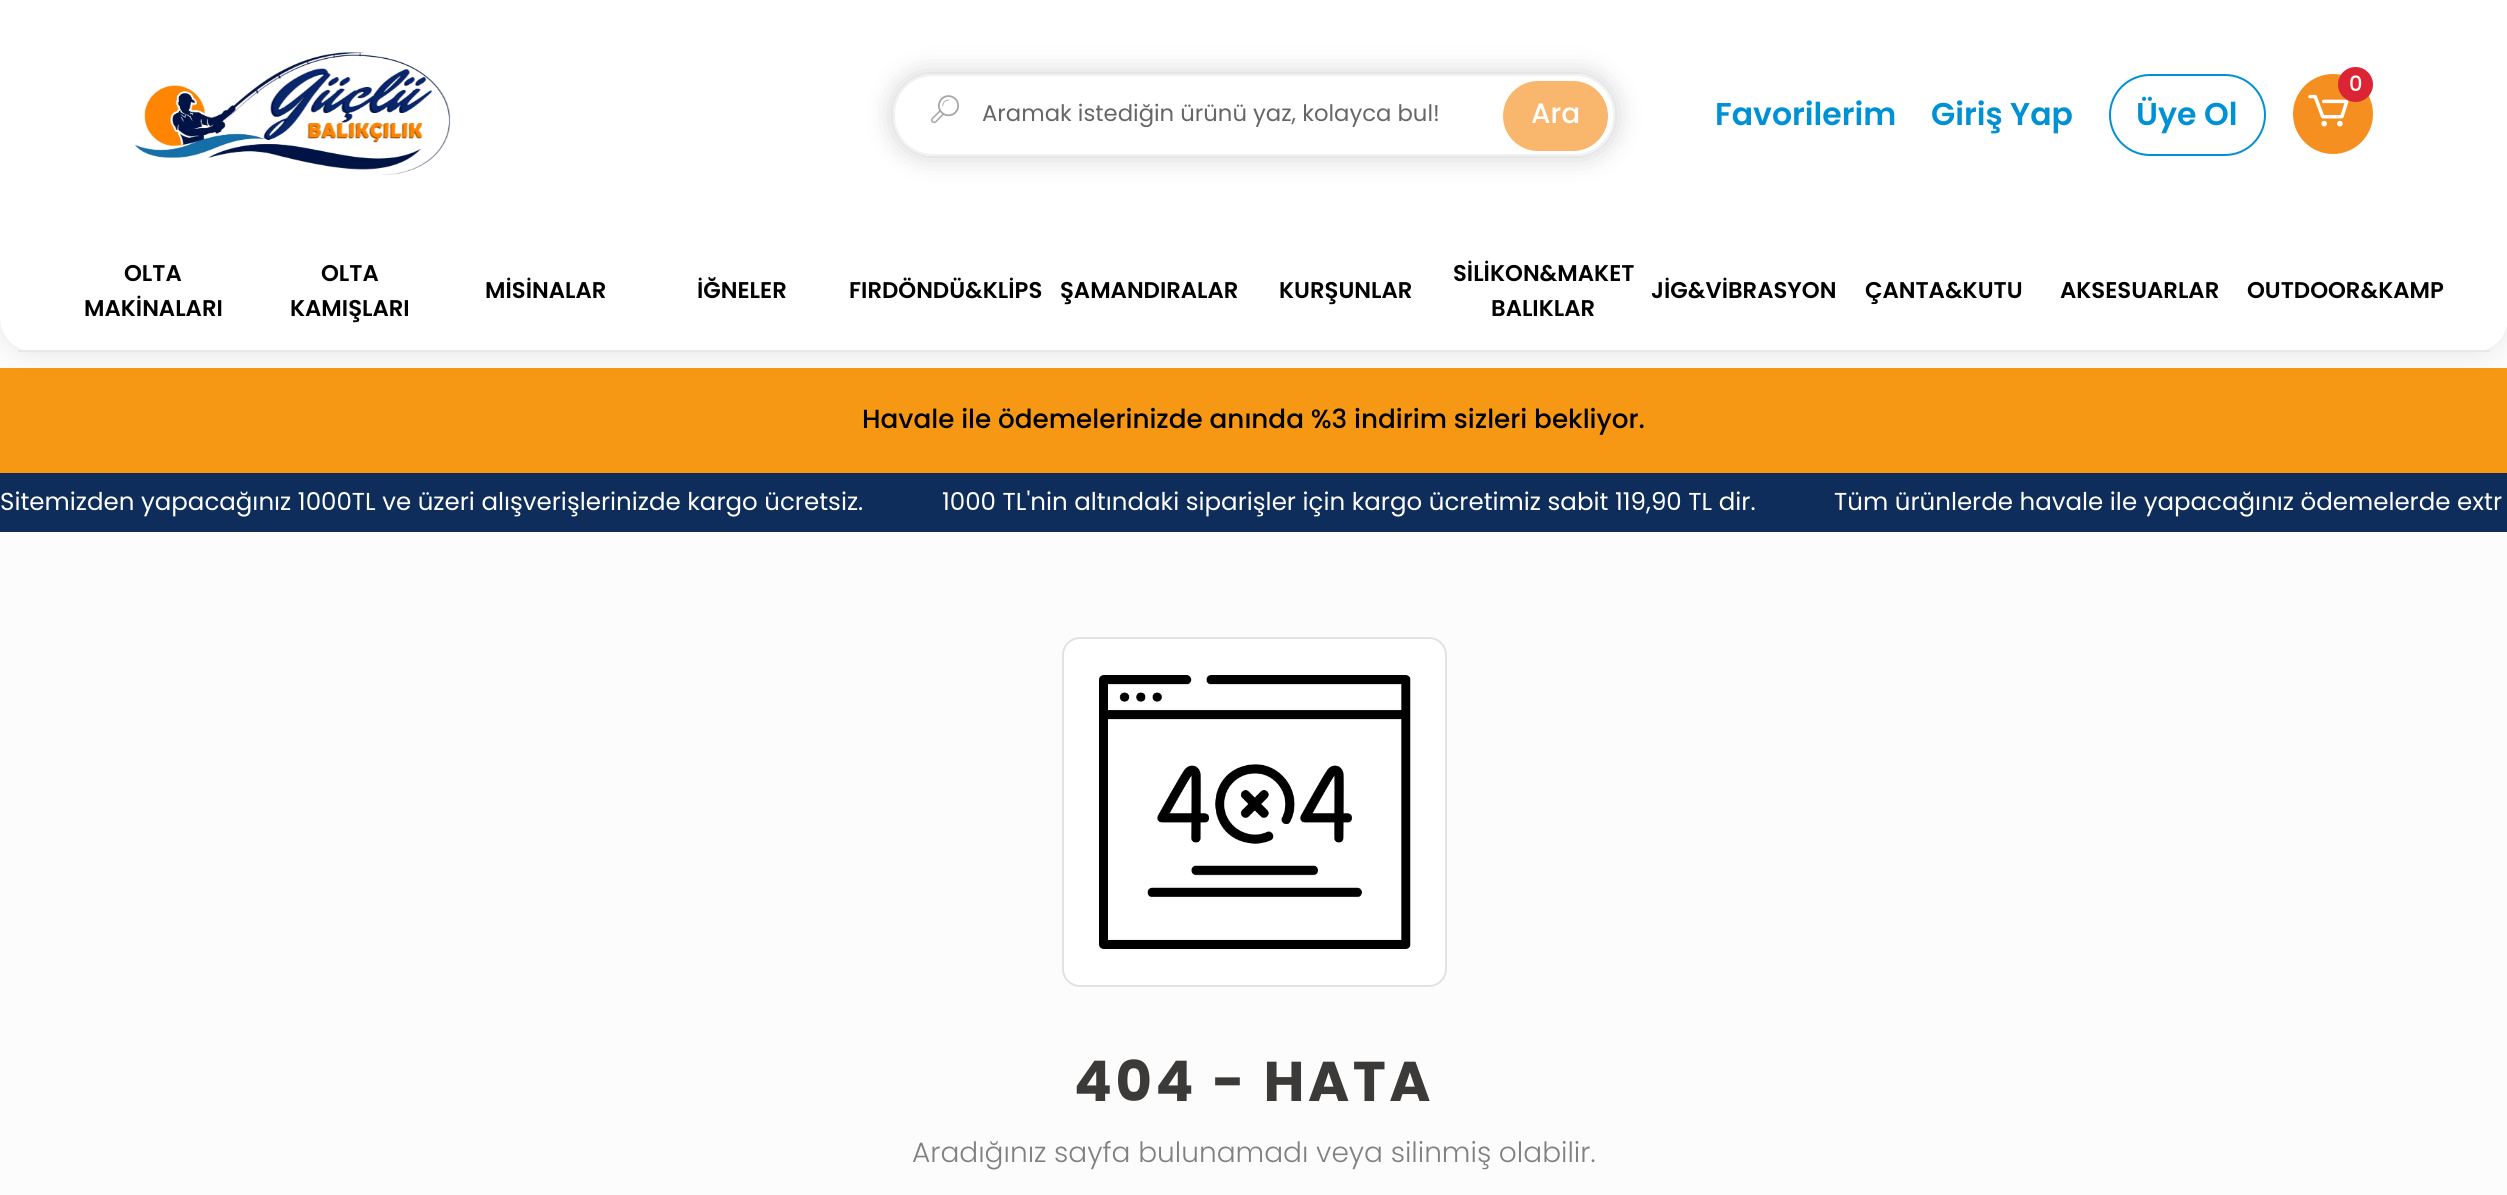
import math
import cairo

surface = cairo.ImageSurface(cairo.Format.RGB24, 2507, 1195)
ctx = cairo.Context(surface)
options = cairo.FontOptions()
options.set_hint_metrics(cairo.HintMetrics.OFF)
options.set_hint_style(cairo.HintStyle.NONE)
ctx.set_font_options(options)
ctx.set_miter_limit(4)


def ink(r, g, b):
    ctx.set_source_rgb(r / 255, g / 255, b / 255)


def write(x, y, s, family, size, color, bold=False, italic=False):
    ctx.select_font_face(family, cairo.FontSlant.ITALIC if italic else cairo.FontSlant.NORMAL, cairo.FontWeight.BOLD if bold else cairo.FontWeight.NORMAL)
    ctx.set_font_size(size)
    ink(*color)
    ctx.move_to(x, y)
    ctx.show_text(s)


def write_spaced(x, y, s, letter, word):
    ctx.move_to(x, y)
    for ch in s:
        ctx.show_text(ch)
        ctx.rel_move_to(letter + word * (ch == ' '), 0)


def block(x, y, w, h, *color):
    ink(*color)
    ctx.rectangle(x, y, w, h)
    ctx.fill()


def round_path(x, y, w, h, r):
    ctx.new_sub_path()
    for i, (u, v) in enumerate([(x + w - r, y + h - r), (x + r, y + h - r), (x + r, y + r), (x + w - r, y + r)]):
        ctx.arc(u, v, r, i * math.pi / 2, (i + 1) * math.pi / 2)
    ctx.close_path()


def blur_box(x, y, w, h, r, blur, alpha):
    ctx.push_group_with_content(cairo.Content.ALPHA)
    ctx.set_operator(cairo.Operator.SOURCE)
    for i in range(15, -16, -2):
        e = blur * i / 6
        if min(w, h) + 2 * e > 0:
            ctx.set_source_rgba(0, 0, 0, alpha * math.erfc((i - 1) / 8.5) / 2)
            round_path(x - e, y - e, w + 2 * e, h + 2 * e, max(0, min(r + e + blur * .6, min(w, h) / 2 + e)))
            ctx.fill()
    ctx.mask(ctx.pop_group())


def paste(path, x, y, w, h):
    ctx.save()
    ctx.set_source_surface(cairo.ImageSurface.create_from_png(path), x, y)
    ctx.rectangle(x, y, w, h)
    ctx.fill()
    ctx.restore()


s1 = dict(family="Poppins", size=22.75, color=(102, 102, 102))
s2 = dict(family="Poppins Medium", size=28, color=(255, 255, 255))
s3 = dict(family="Poppins Medium", size=21, color=(255, 255, 255))
s4 = dict(family="Poppins SemiBold", size=31.5, color=(0, 145, 213))
s5 = dict(family="Poppins SemiBold", size=22.75, color=(0, 0, 0))
s6 = dict(family="Poppins Medium", size=26.25, color=(0, 0, 0))
s7 = dict(family="Poppins", size=24.5, color=(255, 255, 255))
s8 = dict(family="Poppins Light", size=28, color=(128, 128, 128))

ink(252, 252, 252)
ctx.paint()
block(0, 368, 2507, 105, 246, 152, 19)
ink(0, 0, 0)
blur_box(0, 0, 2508, 352, 35, 13, 0.1)
ink(255, 255, 255)
ctx.new_path()
ctx.move_to(0, 0)
ctx.line_to(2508, 0)
ctx.line_to(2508, 317)
ctx.curve_to(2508, 336.5, 2492.5, 352, 2473, 352)
ctx.line_to(35, 352)
ctx.curve_to(15.5, 352, 0, 336.5, 0, 317)
ctx.close_path()
ctx.fill()
block(18, 350, 2472, 2, 232, 232, 232)
paste("pic1.png", 134, 52, 317, 123)
ctx.save()
ctx.set_fill_rule(cairo.FillRule.EVEN_ODD)
ctx.new_path()
ctx.move_to(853, 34)
ctx.line_to(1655, 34)
ctx.line_to(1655, 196)
ctx.line_to(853, 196)
ctx.close_path()
ctx.move_to(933, 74)
ctx.line_to(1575, 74)
ctx.curve_to(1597, 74, 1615, 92, 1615, 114)
ctx.line_to(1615, 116)
ctx.curve_to(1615, 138, 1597, 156, 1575, 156)
ctx.line_to(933, 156)
ctx.curve_to(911, 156, 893, 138, 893, 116)
ctx.line_to(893, 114)
ctx.curve_to(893, 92, 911, 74, 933, 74)
ctx.close_path()
ctx.clip()
ink(0, 0, 0)
blur_box(893, 74, 722, 82, 40, 13, 0.2)
ctx.restore()
round_path(894, 75, 720, 80, 39)
ink(241, 241, 241)
ctx.stroke()
paste("pic2.png", 931, 95, 28, 29)
write(982, 121, "Aramak istediğin ürünü yaz, kolayca bul!", **s1)
ink(249, 182, 109)
round_path(1503, 81, 105, 70, 35)
ctx.fill()
write(1531, 123, "Ara", **s2)
ink(245, 143, 31)
ctx.new_path()
ctx.arc(2333, 114, 40, 0, 2 * math.pi)
ctx.fill()
paste("pic3.png", 2308, 94, 41, 33)
ink(219, 37, 52)
ctx.arc(2355.5, 84.5, 17.5, 0, 2 * math.pi)
ctx.fill()
write(2349, 91, "0", **s3)
write(1715, 125, "Favorilerim", **s4)
write(1931, 125, "Giriş Yap", **s4)
round_path(2110, 75, 155, 80, 40)
ctx.stroke()
write(2136, 125, "Üye Ol", **s4)
write(124, 281, "OLTA", **s5)
write(84, 316, "MAKİNALARI", **s5)
write(321, 281, "OLTA", **s5)
write(290, 316, "KAMIŞLARI", **s5)
write(485, 298, "MİSİNALAR", **s5)
write(697, 298, "İĞNELER", **s5)
write(849, 298, "FIRDÖNDÜ&KLİPS", **s5)
write(1060, 298, "ŞAMANDIRALAR", **s5)
write(1279, 298, "KURŞUNLAR", **s5)
write(1453, 281, "SİLİKON&MAKET", **s5)
write(1491, 316, "BALIKLAR", **s5)
write(1651, 298, "JİG&VİBRASYON", **s5)
write(1865, 298, "ÇANTA&KUTU", **s5)
write(2060, 298, "AKSESUARLAR", **s5)
write(2247, 298, "OUTDOOR&KAMP", **s5)
write(862, 428, "Havale ile ödemelerinizde anında %3 indirim sizleri bekliyor.", **s6)
block(0, 473, 2507, 59, 14, 45, 91)
write(0, 510, "Sitemizden yapacağınız 1000TL ve üzeri alışverişlerinizde kargo ücretsiz.", **s7)
write(942, 510, "1000 TL'nin altındaki siparişler için kargo ücretimiz sabit 119,90 TL dir.", **s7)
write(1834, 510, "Tüm ürünlerde havale ile yapacağınız ödemelerde extr", **s7)
round_path(1063, 638, 383, 348, 17)
ctx.fill_preserve()
ink(226, 226, 226)
ctx.stroke()
paste("pic4.png", 1099, 675, 312, 274)
ctx.select_font_face("Poppins", cairo.FontSlant.NORMAL, cairo.FontWeight.BOLD)
ctx.set_font_size(56)
ink(59, 58, 57)
write_spaced(1074, 1101, "404 - HATA", 3.5, 0)
write(912, 1162, "Aradığınız sayfa bulunamadı veya silinmiş olabilir.", **s8)
surface.write_to_png("screenshot.png")
